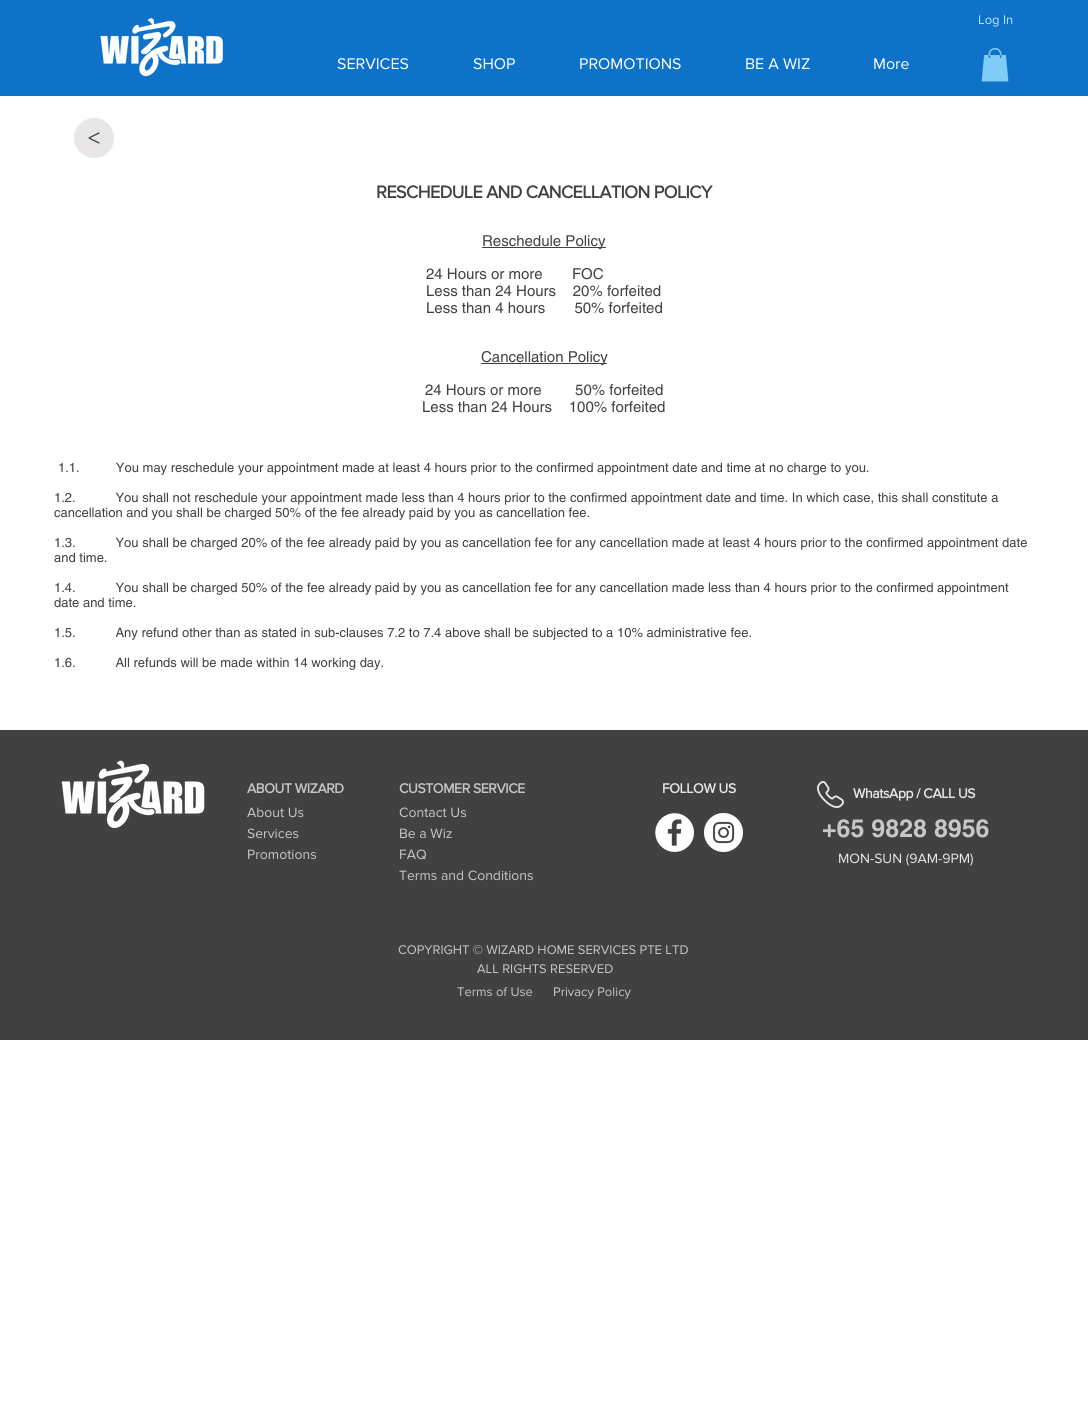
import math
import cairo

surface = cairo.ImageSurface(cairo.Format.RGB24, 1088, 1427)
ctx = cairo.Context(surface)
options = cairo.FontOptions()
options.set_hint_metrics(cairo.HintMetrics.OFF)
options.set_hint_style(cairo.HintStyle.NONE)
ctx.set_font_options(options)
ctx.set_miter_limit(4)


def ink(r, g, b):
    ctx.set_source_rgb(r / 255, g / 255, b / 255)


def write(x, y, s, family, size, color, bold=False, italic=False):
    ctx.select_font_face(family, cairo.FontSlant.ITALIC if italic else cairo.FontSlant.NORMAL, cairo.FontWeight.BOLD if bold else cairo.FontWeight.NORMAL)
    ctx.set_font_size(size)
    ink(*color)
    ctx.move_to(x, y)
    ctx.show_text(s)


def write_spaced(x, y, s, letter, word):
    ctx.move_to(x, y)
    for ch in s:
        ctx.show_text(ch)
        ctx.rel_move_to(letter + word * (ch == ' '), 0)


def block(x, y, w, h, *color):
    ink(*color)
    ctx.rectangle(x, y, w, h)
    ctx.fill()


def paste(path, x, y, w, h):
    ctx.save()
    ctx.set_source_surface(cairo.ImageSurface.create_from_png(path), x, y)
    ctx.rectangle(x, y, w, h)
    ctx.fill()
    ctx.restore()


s1 = dict(family="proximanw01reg", size=13, color=(190, 229, 251))
s2 = dict(family="proximanw01reg", size=16, color=(255, 255, 255))
s3 = dict(family="proximanw01reg", size=24, color=(65, 65, 65))
s4 = dict(family="helvetica", size=15, color=(65, 65, 65))
s5 = dict(family="helvetica", size=13, color=(65, 65, 65))
s6 = dict(family="proximanw01reg", size=14, color=(199, 199, 199))
s7 = dict(family="helvetica", size=25, color=(199, 199, 199), bold=True)
s8 = dict(family="proximanw01reg", size=14, color=(232, 230, 230))
s9 = dict(family="proximanw01reg", size=13, color=(199, 199, 199))

ink(255, 255, 255)
ctx.paint()
block(0, 0, 1088, 96, 14, 114, 201)
paste("pic1.png", 100, 18, 123, 59)
write(978, 24, "Log In", **s1)
write(337, 69, "SERVICES", **s2)
write(473, 69, "SHOP", **s2)
write(579, 69, "PROMOTIONS", **s2)
write(745, 69, "BE A WIZ", **s2)
write(873, 69, "More", **s2)
paste("pic2.png", 981, 48, 28, 34)
ink(232, 230, 230)
ctx.arc(94, 138, 20, 0, 2 * math.pi)
ctx.fill()
write(88, 146, "<", **s3)
ctx.select_font_face("proximanw01reg", cairo.FontSlant.NORMAL, cairo.FontWeight.BOLD)
ctx.set_font_size(18)
write_spaced(376, 198, "RESCHEDULE AND CANCELLATION POLICY", -0.55, 0)
block(482, 247, 124, 1, 65, 65, 65)
write(482, 246, "Reschedule Policy", **s4)
write(426, 279, "24 Hours or more       FOC", **s4)
write(426, 296, "Less than 24 Hours    20% forfeited", **s4)
write(426, 313, "Less than 4 hours       50% forfeited", **s4)
block(481, 363, 126, 1, 65, 65, 65)
write(481, 362, "Cancellation Policy", **s4)
write(425, 395, "24 Hours or more        50% forfeited", **s4)
write(422, 412, "Less than 24 Hours    100% forfeited", **s4)
write(58, 472, "1.1.          You may reschedule your appointment made at least 4 hours prior to the confirmed appointment date and time at no charge to you.", **s5)
write(54, 502, "1.2.           You shall not reschedule your appointment made less than 4 hours prior to the confirmed appointment date and time. In which case, this shall constitute a", **s5)
write(54, 517, "cancellation and you shall be charged 50% of the fee already paid by you as cancellation fee.", **s5)
write(54, 547, "1.3.           You shall be charged 20% of the fee already paid by you as cancellation fee for any cancellation made at least 4 hours prior to the confirmed appointment date", **s5)
write(54, 562, "and time.", **s5)
write(54, 592, "1.4.           You shall be charged 50% of the fee already paid by you as cancellation fee for any cancellation made less than 4 hours prior to the confirmed appointment", **s5)
write(54, 607, "date and time.", **s5)
write(54, 637, "1.5.           Any refund other than as stated in sub-clauses 7.2 to 7.4 above shall be subjected to a 10% administrative fee.", **s5)
write(54, 667, "1.6.           All refunds will be made within 14 working day.", **s5)
block(0, 730, 1088, 310, 65, 65, 65)
paste("pic3.png", 61, 760, 144, 68)
ctx.select_font_face("proximanw01reg", cairo.FontSlant.NORMAL, cairo.FontWeight.BOLD)
ctx.set_font_size(14)
ink(199, 199, 199)
write_spaced(247, 793, "ABOUT WIZARD", -0.4, 0)
write(247, 817, "About Us", **s6)
write(247, 838, "Services", **s6)
write(247, 859, "Promotions", **s6)
ctx.select_font_face("proximanw01reg", cairo.FontSlant.NORMAL, cairo.FontWeight.BOLD)
write_spaced(399, 793, "CUSTOMER SERVICE", -0.4, 0)
write(399, 817, "Contact Us", **s6)
write(399, 838, "Be a Wiz", **s6)
write(399, 859, "FAQ", **s6)
write(399, 880, "Terms and Conditions", **s6)
ctx.select_font_face("proximanw01reg", cairo.FontSlant.NORMAL, cairo.FontWeight.BOLD)
ink(232, 230, 230)
write_spaced(662, 793, "FOLLOW US", -0.4, 0)
paste("pic4.png", 655, 813, 39, 39)
paste("pic5.png", 704, 813, 39, 39)
paste("pic6.png", 817, 781, 27, 27)
write_spaced(853, 798, "WhatsApp / CALL US", -0.4, 0)
write(822, 837, "+65 9828 8956", **s7)
write(838, 863, "MON-SUN (9AM-9PM)", **s8)
write(398, 954, "COPYRIGHT © WIZARD HOME SERVICES PTE LTD", **s9)
write(477, 973, "ALL RIGHTS RESERVED", **s9)
write(457, 996, "Terms of Use", **s9)
write(553, 996, "Privacy Policy", **s9)
surface.write_to_png("screenshot.png")
